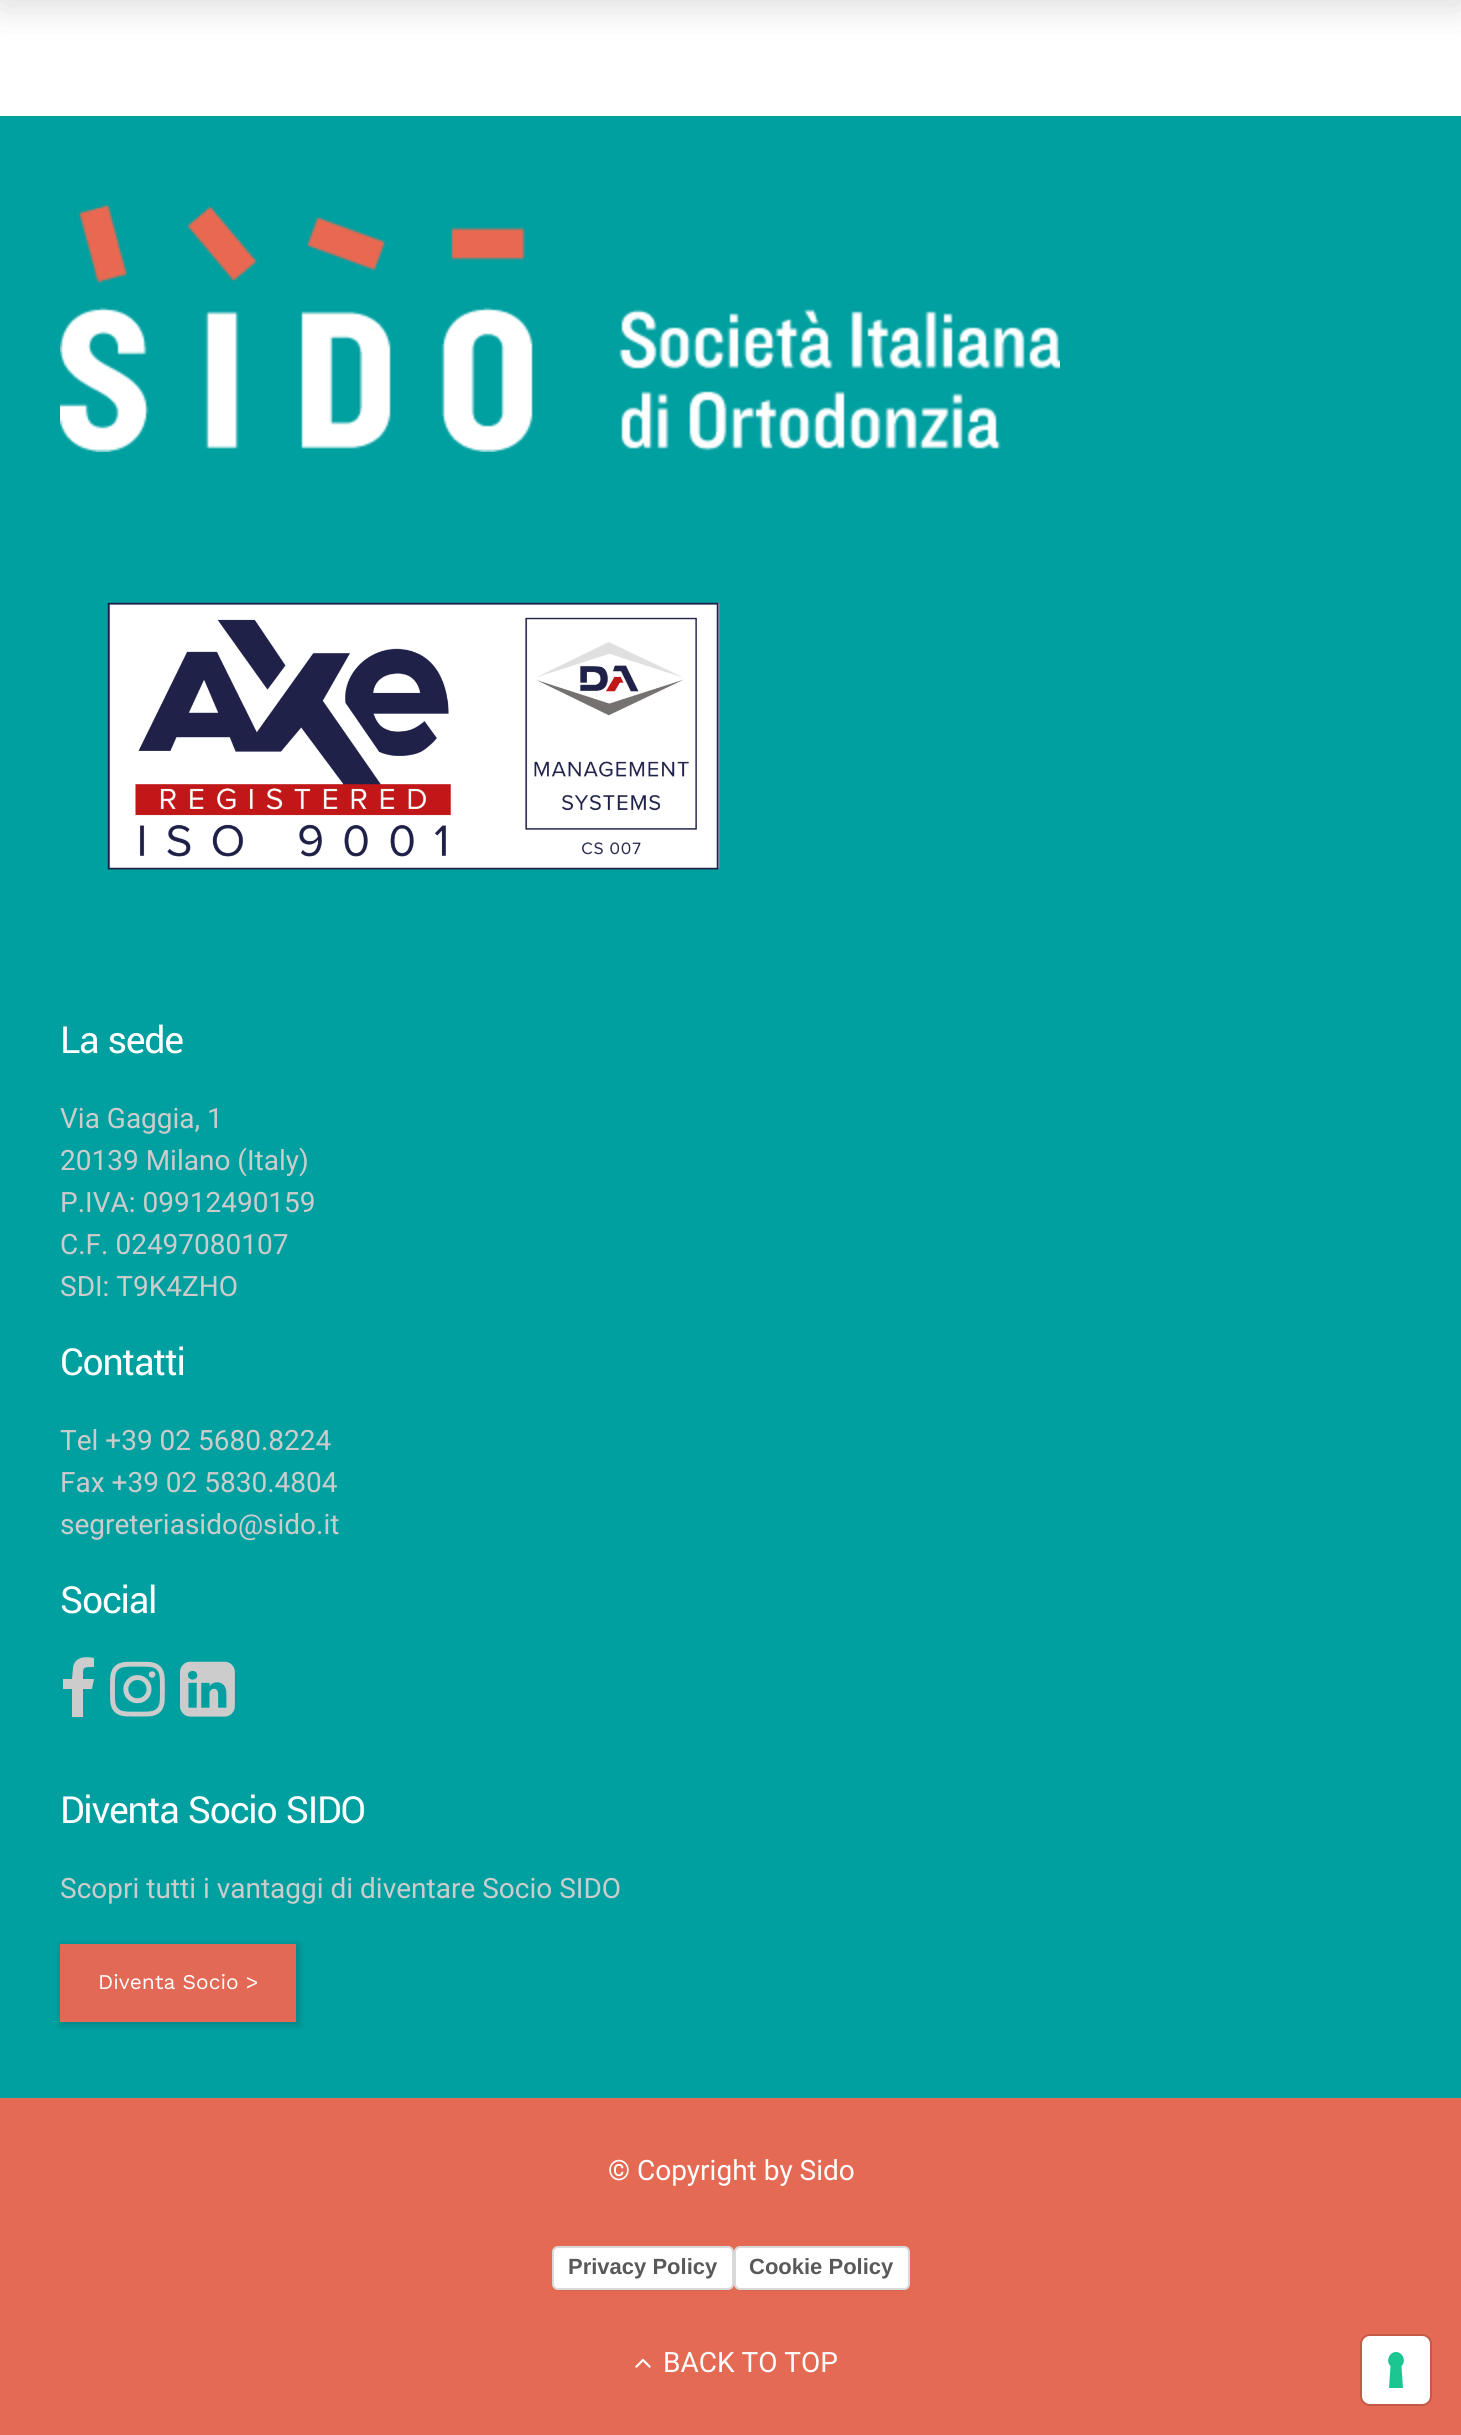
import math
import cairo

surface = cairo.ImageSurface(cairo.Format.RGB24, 1461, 2435)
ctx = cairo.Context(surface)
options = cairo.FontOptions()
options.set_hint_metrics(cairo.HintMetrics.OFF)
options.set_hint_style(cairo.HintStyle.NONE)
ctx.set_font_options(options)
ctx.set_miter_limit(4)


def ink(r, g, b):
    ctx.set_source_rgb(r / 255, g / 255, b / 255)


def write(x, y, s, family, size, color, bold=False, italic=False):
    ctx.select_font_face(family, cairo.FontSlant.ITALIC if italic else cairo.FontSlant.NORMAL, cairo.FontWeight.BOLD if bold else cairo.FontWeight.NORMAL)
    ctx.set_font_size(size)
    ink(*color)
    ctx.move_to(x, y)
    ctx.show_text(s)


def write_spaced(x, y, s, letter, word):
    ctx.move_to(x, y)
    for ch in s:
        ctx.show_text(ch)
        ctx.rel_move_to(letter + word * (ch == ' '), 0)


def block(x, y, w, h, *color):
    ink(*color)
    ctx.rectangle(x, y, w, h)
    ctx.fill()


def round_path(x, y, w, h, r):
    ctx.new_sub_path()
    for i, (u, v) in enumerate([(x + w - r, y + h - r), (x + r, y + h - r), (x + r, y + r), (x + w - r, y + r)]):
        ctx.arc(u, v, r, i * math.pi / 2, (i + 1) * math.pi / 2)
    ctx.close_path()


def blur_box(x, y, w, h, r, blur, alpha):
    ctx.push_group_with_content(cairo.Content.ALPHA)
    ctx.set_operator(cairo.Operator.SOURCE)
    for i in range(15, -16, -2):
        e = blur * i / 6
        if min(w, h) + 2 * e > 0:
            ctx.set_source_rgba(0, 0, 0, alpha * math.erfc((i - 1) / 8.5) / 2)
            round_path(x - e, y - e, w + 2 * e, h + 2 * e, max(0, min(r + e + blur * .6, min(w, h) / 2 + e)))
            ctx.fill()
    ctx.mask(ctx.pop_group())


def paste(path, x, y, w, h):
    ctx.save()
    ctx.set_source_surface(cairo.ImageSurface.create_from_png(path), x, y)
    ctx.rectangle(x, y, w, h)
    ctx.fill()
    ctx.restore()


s1 = dict(family="Roboto", size=28, color=(204, 204, 204))
s2 = dict(family="Work Sans", size=21, color=(255, 255, 255))
s3 = dict(family="Roboto", size=28, color=(255, 255, 255))
s4 = dict(family="Liberation Sans", size=22, color=(89, 89, 89), bold=True)

ink(255, 255, 255)
ctx.paint()
ink(0, 0, 0)
blur_box(0, -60, 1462, 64, 0, 20, 0.15)
block(0, 116, 1461, 1982, 0, 160, 161)
paste("pic1.png", 60, 204, 1000, 248)
paste("pic2.png", 107, 602, 613, 268)
ctx.select_font_face("Yantramanav")
ctx.set_font_size(41.5)
ink(255, 255, 255)
write_spaced(60, 1053, "La sede", -1.25, 0)
write(60, 1128, "Via Gaggia, 1", **s1)
write(60, 1170, "20139 Milano (Italy)", **s1)
write(60, 1212, "P.IVA: 09912490159", **s1)
write(60, 1254, "C.F. 02497080107", **s1)
write(60, 1296, "SDI: T9K4ZHO", **s1)
ctx.select_font_face("Yantramanav")
ctx.set_font_size(41.5)
ink(255, 255, 255)
write_spaced(60, 1375, "Contatti", -1.25, 0)
write(60, 1450, "Tel +39 02 5680.8224", **s1)
write(60, 1492, "Fax +39 02 5830.4804", **s1)
write(60, 1534, "segreteriasido@sido.it", **s1)
ctx.select_font_face("Yantramanav")
ctx.set_font_size(41.5)
ink(255, 255, 255)
write_spaced(60, 1613, "Social", -1.25, 0)
ink(204, 204, 204)
ctx.new_path()
ctx.move_to(94, 1658)
ctx.line_to(94, 1667)
ctx.curve_to(82, 1667, 83, 1667, 83, 1679)
ctx.line_to(94, 1679)
ctx.line_to(92, 1689)
ctx.line_to(83, 1689)
ctx.line_to(83, 1717)
ctx.line_to(72, 1717)
ctx.line_to(72, 1689)
ctx.line_to(63, 1689)
ctx.line_to(63, 1679)
ctx.line_to(72, 1679)
ctx.line_to(73, 1668)
ctx.curve_to(74, 1657, 85, 1656, 94, 1658)
ctx.close_path()
ctx.fill()
paste("pic3.png", 110, 1661, 55, 56)
paste("pic4.png", 180, 1661, 55, 56)
ink(255, 255, 255)
write_spaced(60, 1823, "Diventa Socio SIDO", -1.25, 0)
write(60, 1898, "Scopri tutti i vantaggi di diventare Socio SIDO", **s1)
ink(34, 34, 34)
blur_box(60, 1944, 240, 82, 0, 3, 0.2)
block(60, 1944, 236, 78, 227, 105, 87)
write(98, 1989, "Diventa Socio >", **s2)
block(0, 2098, 1461, 337, 229, 106, 84)
write(608, 2180, "© Copyright by Sido", **s3)
ink(0, 0, 0)
blur_box(554, 2250, 178, 40, 4, 1, 0.15)
ink(255, 255, 255)
round_path(552, 2246, 182, 44, 6)
ctx.fill()
round_path(553, 2247, 180, 42, 5)
ctx.set_source_rgba(0, 0, 0, 0.15)
ctx.stroke()
write(568, 2274, "Privacy Policy", **s4)
ink(0, 0, 0)
blur_box(736, 2250, 172, 40, 4, 1, 0.15)
ink(255, 255, 255)
round_path(734, 2246, 176, 44, 6)
ctx.fill()
round_path(735, 2247, 174, 42, 5)
ctx.set_source_rgba(0, 0, 0, 0.15)
ctx.stroke()
write(749, 2274, "Cookie Policy", **s4)
paste("pic5.png", 635, 2358, 16, 10)
write(663, 2372, "BACK TO TOP", **s3)
round_path(1361, 2335, 70, 70, 9)
ink(195, 90, 71)
ctx.stroke()
ink(255, 255, 255)
round_path(1362, 2336, 68, 68, 8)
ctx.fill()
ink(28, 198, 145)
ctx.set_fill_rule(cairo.FillRule.EVEN_ODD)
ctx.new_path()
ctx.move_to(1396, 2352)
ctx.curve_to(1403, 2352, 1406.5, 2361.5, 1401.5, 2366)
ctx.line_to(1403, 2388)
ctx.line_to(1389, 2388)
ctx.line_to(1390.5, 2366)
ctx.curve_to(1385.5, 2361.5, 1389, 2352, 1396, 2352)
ctx.close_path()
ctx.fill()
surface.write_to_png("screenshot.png")
